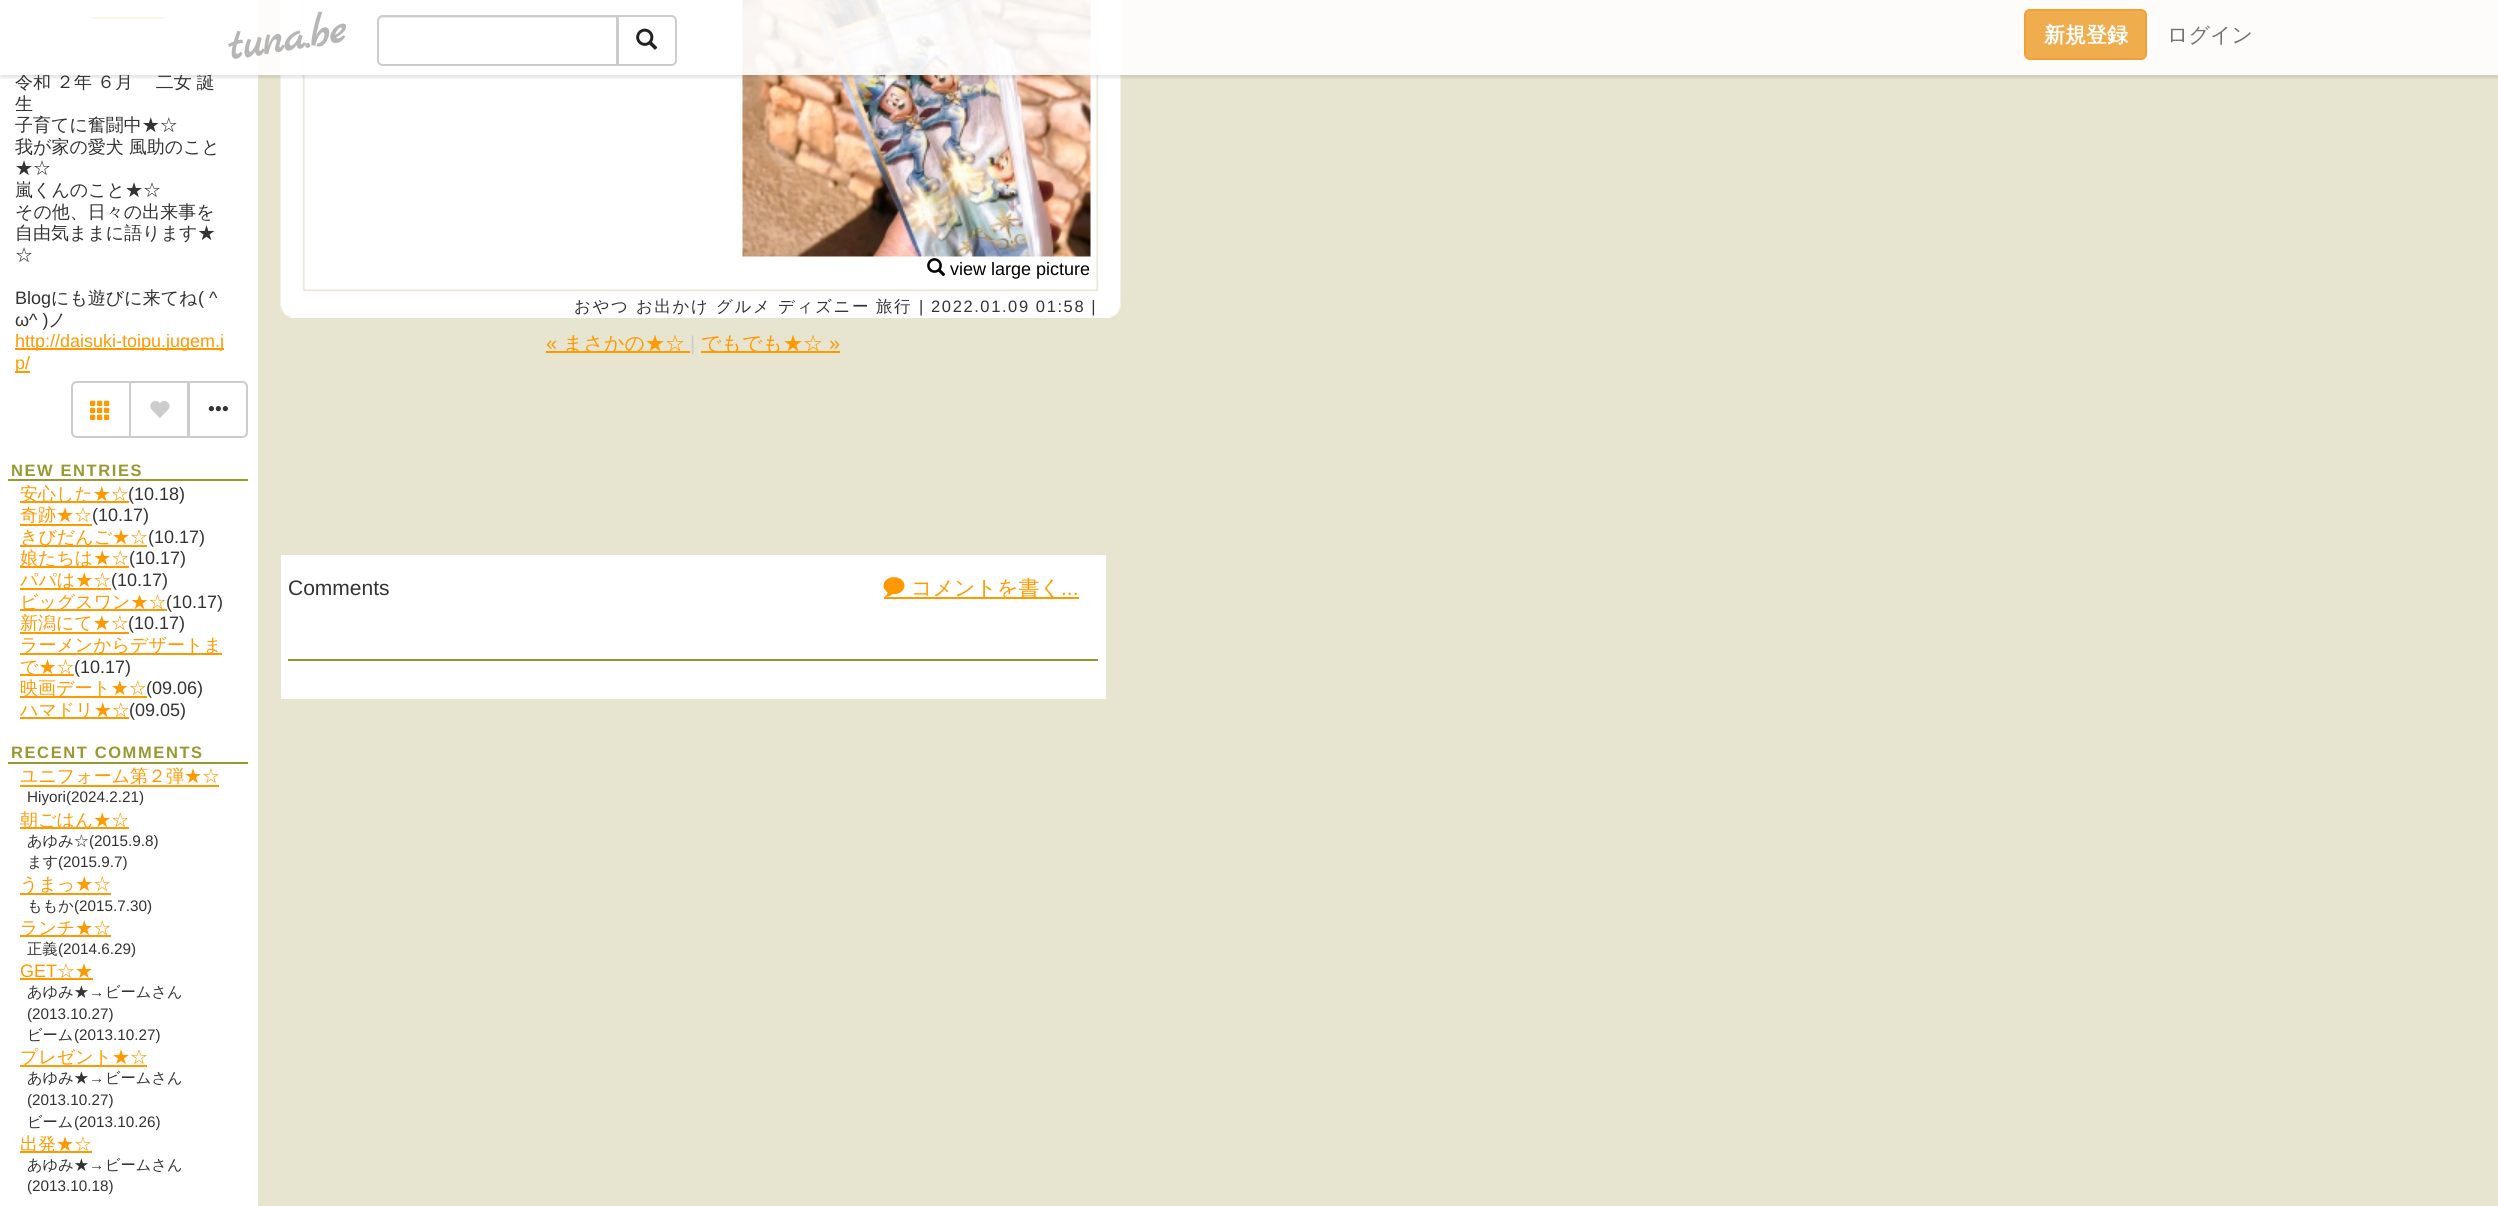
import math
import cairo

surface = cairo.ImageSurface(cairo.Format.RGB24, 2498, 1206)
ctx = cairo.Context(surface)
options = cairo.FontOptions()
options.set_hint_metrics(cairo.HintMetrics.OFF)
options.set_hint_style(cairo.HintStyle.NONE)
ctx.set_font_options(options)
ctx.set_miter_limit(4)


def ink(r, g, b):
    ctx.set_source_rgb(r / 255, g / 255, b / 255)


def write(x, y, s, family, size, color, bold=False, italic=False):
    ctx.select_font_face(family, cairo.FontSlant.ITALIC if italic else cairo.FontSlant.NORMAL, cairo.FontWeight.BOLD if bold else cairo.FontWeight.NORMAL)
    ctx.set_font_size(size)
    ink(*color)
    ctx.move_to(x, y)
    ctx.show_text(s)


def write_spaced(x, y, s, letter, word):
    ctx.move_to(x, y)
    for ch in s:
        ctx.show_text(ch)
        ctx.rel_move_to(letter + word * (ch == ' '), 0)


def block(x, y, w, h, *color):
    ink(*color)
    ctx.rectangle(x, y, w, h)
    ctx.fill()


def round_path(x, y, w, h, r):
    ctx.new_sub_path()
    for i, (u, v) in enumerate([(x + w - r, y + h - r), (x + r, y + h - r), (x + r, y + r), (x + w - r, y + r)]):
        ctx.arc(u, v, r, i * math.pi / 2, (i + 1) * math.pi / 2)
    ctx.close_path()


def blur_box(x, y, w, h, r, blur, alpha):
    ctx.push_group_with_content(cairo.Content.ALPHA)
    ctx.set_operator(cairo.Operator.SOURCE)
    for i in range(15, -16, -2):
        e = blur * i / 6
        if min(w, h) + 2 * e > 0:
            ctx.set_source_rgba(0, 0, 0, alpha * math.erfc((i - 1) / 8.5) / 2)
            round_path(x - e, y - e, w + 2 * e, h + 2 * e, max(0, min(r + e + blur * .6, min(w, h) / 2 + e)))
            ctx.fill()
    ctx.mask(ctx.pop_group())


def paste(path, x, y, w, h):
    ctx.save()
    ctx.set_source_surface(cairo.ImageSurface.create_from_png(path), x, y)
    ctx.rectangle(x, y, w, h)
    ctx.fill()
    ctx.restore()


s1 = dict(family="WenQuanYi Zen Hei Medium", size=18, color=(51, 51, 51))
s2 = dict(family="Marck Script", size=45, color=(182, 182, 182), bold=True)
s3 = dict(family="WenQuanYi Zen Hei", size=21, color=(255, 255, 255), bold=True)
s4 = dict(family="WenQuanYi Zen Hei Medium", size=21, color=(114, 114, 114))
s5 = dict(family="Liberation Sans", size=18, color=(51, 51, 51))
s6 = dict(family="Liberation Sans", size=18, color=(255, 153, 0))
s7 = dict(family="WenQuanYi Zen Hei Medium", size=18, color=(255, 153, 0))
s8 = dict(family="Liberation Sans", size=15.25, color=(51, 51, 51))
s9 = dict(family="WenQuanYi Zen Hei Medium", size=15.25, color=(51, 51, 51))
s10 = dict(family="Liberation Sans", size=18, color=(0, 0, 0))
s11 = dict(family="Liberation Sans", size=20, color=(255, 153, 0))
s12 = dict(family="WenQuanYi Zen Hei Medium", size=20, color=(255, 153, 0))
s13 = dict(family="Liberation Sans", size=20, color=(204, 204, 204))
s14 = dict(family="Liberation Sans", size=21, color=(51, 51, 51))
s15 = dict(family="WenQuanYi Zen Hei Medium", size=21, color=(255, 153, 0))
s16 = dict(family="Liberation Sans", size=21, color=(255, 153, 0))

ink(231, 228, 207)
ctx.paint()
block(0, 0, 258, 1206, 255, 255, 255)
block(92, 17, 72, 2, 255, 153, 0)
paste("pic5.png", 280, 0, 841, 281)
paste("pic6.png", 742, 0, 349, 257)
ctx.save()
ctx.rectangle(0, 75, 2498, 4)
ctx.clip()
ink(0, 0, 0)
blur_box(0, 3, 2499, 75, 0, 1.5, 0.1)
ctx.restore()
write(15, 88, "令和", **s1)
write_spaced(56, 88, "２年 ６月 　二女 誕", 0, -0.5)
ctx.set_source_rgba(1, 1, 1, 0.9)
ctx.rectangle(22, 0, 2476, 75)
ctx.fill()
ctx.save()
ctx.translate(230, 60)
ctx.rotate(-9 * math.pi / 180)
write(0, 0, "tuna.be", **s2)
ctx.restore()
ink(236, 236, 236)
ctx.new_path()
ctx.move_to(382, 18)
ctx.line_to(616, 18)
ctx.line_to(616, 65)
ctx.line_to(617, 65)
ctx.line_to(617, 17)
ctx.line_to(383, 17)
ctx.curve_to(380, 17, 378, 19, 378, 22)
ctx.curve_to(378, 20, 380, 18, 382, 18)
ctx.close_path()
ctx.fill()
ctx.new_path()
ctx.move_to(383, 16)
ctx.line_to(617, 16)
ctx.line_to(617, 65)
ctx.line_to(383, 65)
ctx.curve_to(380, 65, 378, 63, 378, 60)
ctx.line_to(378, 21)
ctx.curve_to(378, 18, 380, 16, 383, 16)
ctx.close_path()
ink(204, 204, 204)
ctx.stroke()
ink(255, 255, 255)
ctx.new_path()
ctx.move_to(618, 16)
ctx.line_to(671, 16)
ctx.curve_to(674, 16, 676, 18, 676, 21)
ctx.line_to(676, 60)
ctx.curve_to(676, 63, 674, 65, 671, 65)
ctx.line_to(618, 65)
ctx.close_path()
ctx.fill_preserve()
ink(204, 204, 204)
ctx.stroke()
paste("pic1.png", 636, 28, 22, 22)
ink(240, 173, 78)
round_path(2025, 10, 121, 49, 5)
ctx.fill_preserve()
ink(238, 162, 54)
ctx.stroke()
write(2044, 42, "新規登録", **s3)
write(2167, 42, "ログイン", **s4)
write(15, 110, "生", **s1)
write(15, 131, "子育てに奮闘中★☆", **s1)
write_spaced(15, 153, "我が家の愛犬 風助のこと", 0, -0.5)
write(15, 174, "★☆", **s1)
write(15, 196, "嵐くんのこと★☆", **s1)
write(15, 218, "その他、日々の出来事を", **s1)
write(15, 239, "自由気ままに語ります★", **s1)
write(15, 261, "☆", **s1)
write(15, 304, "Blog", **s5)
write(51, 304, "にも遊びに来てね", **s1)
write(198, 304, "( ^", **s5)
write(15, 326, "ω^ )", **s5)
write(48, 326, "ノ", **s1)
block(15, 348, 209, 2, 255, 153, 0)
write(15, 347, "http://daisuki-toipu.jugem.j", **s6)
block(15, 371, 15, 2, 255, 153, 0)
write(15, 369, "p/", **s6)
ctx.new_path()
ctx.move_to(77, 382)
ctx.line_to(130, 382)
ctx.line_to(130, 437)
ctx.line_to(77, 437)
ctx.curve_to(74, 437, 72, 435, 72, 432)
ctx.line_to(72, 387)
ctx.curve_to(72, 384, 74, 382, 77, 382)
ctx.close_path()
ink(204, 204, 204)
ctx.stroke()
paste("pic2.png", 90, 400, 20, 20)
ctx.rectangle(130, 382, 58, 55)
ctx.stroke()
paste("pic3.png", 150, 401, 20, 18)
ink(255, 255, 255)
ctx.new_path()
ctx.move_to(189, 382)
ctx.line_to(242, 382)
ctx.curve_to(245, 382, 247, 384, 247, 387)
ctx.line_to(247, 432)
ctx.curve_to(247, 435, 245, 437, 242, 437)
ctx.line_to(189, 437)
ctx.close_path()
ctx.fill_preserve()
ink(204, 204, 204)
ctx.stroke()
paste("pic4.png", 208, 406, 20, 6)
block(8, 479, 240, 2, 153, 153, 51)
ctx.select_font_face("Liberation Sans", cairo.FontSlant.NORMAL, cairo.FontWeight.BOLD)
ctx.set_font_size(16.5)
write_spaced(11, 476, "NEW ENTRIES", 1.6, 0)
block(20, 501, 109, 2, 255, 153, 0)
write(20, 500, "安心した★☆", **s7)
write(128, 500, "(10.18)", **s5)
write(20, 521, "奇跡★☆", **s7)
block(20, 524, 72, 2, 255, 153, 0)
write(92, 521, "(10.17)", **s5)
block(20, 545, 127, 2, 255, 153, 0)
write(20, 543, "きびだんご★☆", **s7)
write(148, 543, "(10.17)", **s5)
block(20, 566, 109, 2, 255, 153, 0)
write(20, 564, "娘たちは★☆", **s7)
write(129, 564, "(10.17)", **s5)
block(20, 588, 91, 2, 255, 153, 0)
write(20, 586, "パパは★☆", **s7)
write(111, 586, "(10.17)", **s5)
block(20, 609, 147, 2, 255, 153, 0)
write(20, 608, "ビッグスワン★☆", **s7)
write(166, 608, "(10.17)", **s5)
write(20, 629, "新潟にて★☆", **s7)
block(20, 632, 109, 2, 255, 153, 0)
write(128, 629, "(10.17)", **s5)
block(20, 653, 202, 2, 255, 153, 0)
write(20, 651, "ラーメンからデザートま", **s7)
block(20, 674, 54, 2, 255, 153, 0)
write(20, 673, "で★☆", **s7)
write(74, 673, "(10.17)", **s5)
block(20, 696, 127, 2, 255, 153, 0)
write(20, 694, "映画デート★☆", **s7)
write(146, 694, "(09.06)", **s5)
block(20, 717, 109, 2, 255, 153, 0)
write(20, 716, "ハマドリ★☆", **s7)
write(129, 716, "(09.05)", **s5)
block(8, 762, 240, 2, 153, 153, 51)
ctx.select_font_face("Liberation Sans", cairo.FontSlant.NORMAL, cairo.FontWeight.BOLD)
ctx.set_font_size(16.5)
write_spaced(11, 758, "RECENT COMMENTS", 1.6, 0)
write(20, 782, "ユニフォーム第２弾★☆", **s7)
block(20, 785, 199, 2, 255, 153, 0)
write(27, 802, "Hiyori(2024.2.21)", **s8)
block(20, 827, 109, 2, 255, 153, 0)
write(20, 826, "朝ごはん★☆", **s7)
write(27, 846, "あゆみ☆", **s9)
write(89, 846, "(2015.9.8)", **s8)
write(27, 867, "ます", **s9)
write(58, 867, "(2015.9.7)", **s8)
block(20, 893, 91, 2, 255, 153, 0)
write(20, 890, "うまっ★☆", **s7)
write(27, 911, "ももか", **s9)
write(74, 911, "(2015.7.30)", **s8)
block(20, 935, 91, 2, 255, 153, 0)
write(20, 934, "ランチ★☆", **s7)
write(27, 954, "正義", **s9)
write(58, 954, "(2014.6.29)", **s8)
write(20, 977, "GET", **s6)
block(20, 978, 73, 2, 255, 153, 0)
write(57, 977, "☆★", **s7)
write(27, 997, "あゆみ★", **s9)
write(89, 997, "→", **s8)
write(105, 997, "ビームさん", **s9)
write(27, 1019, "(2013.10.27)", **s8)
write(27, 1040, "ビーム", **s9)
write(74, 1040, "(2013.10.27)", **s8)
block(20, 1065, 127, 2, 255, 153, 0)
write(20, 1063, "プレゼント★☆", **s7)
write(27, 1083, "あゆみ★", **s9)
write(89, 1083, "→", **s8)
write(105, 1083, "ビームさん", **s9)
write(27, 1105, "(2013.10.27)", **s8)
write(27, 1127, "ビーム", **s9)
write(74, 1127, "(2013.10.26)", **s8)
block(20, 1151, 72, 2, 255, 153, 0)
write(20, 1150, "出発★☆", **s7)
write(27, 1170, "あゆみ★", **s9)
write(89, 1170, "→", **s8)
write(105, 1170, "ビームさん", **s9)
write(27, 1191, "(2013.10.18)", **s8)
paste("pic7.png", 927, 258, 19, 19)
write(950, 275, "view large picture", **s10)
paste("pic8.png", 280, 281, 848, 37)
ctx.select_font_face("WenQuanYi Zen Hei Medium")
ctx.set_font_size(16.5)
ink(51, 51, 51)
write_spaced(574, 312, "おやつ", 1.6, 0)
write_spaced(636, 312, "お出かけ", 1.6, 0)
write_spaced(716, 312, "グルメ", 1.6, 0)
write_spaced(778, 312, "ディズニー", 1.6, 0)
write_spaced(876, 312, "旅行", 1.6, 0)
ctx.select_font_face("Liberation Sans")
write_spaced(919, 312, "| 2022.01.09 01:58 |", 1.6, 0)
write(546, 350, "«", **s11)
block(546, 351, 144, 2, 255, 153, 0)
write(563, 350, "まさかの★☆", **s12)
write(690, 350, "|", **s13)
block(701, 351, 139, 2, 255, 153, 0)
write(701, 350, "でもでも★☆", **s12)
write(829, 350, "»", **s11)
block(281, 555, 825, 144, 255, 255, 255)
write(288, 595, "Comments", **s14)
paste("pic9.png", 883, 577, 22, 20)
block(884, 597, 195, 2, 255, 153, 0)
write(911, 595, "コメントを書く", **s15)
write(1061, 595, "...", **s16)
block(288, 659, 810, 2, 153, 153, 51)
surface.write_to_png("screenshot.png")
